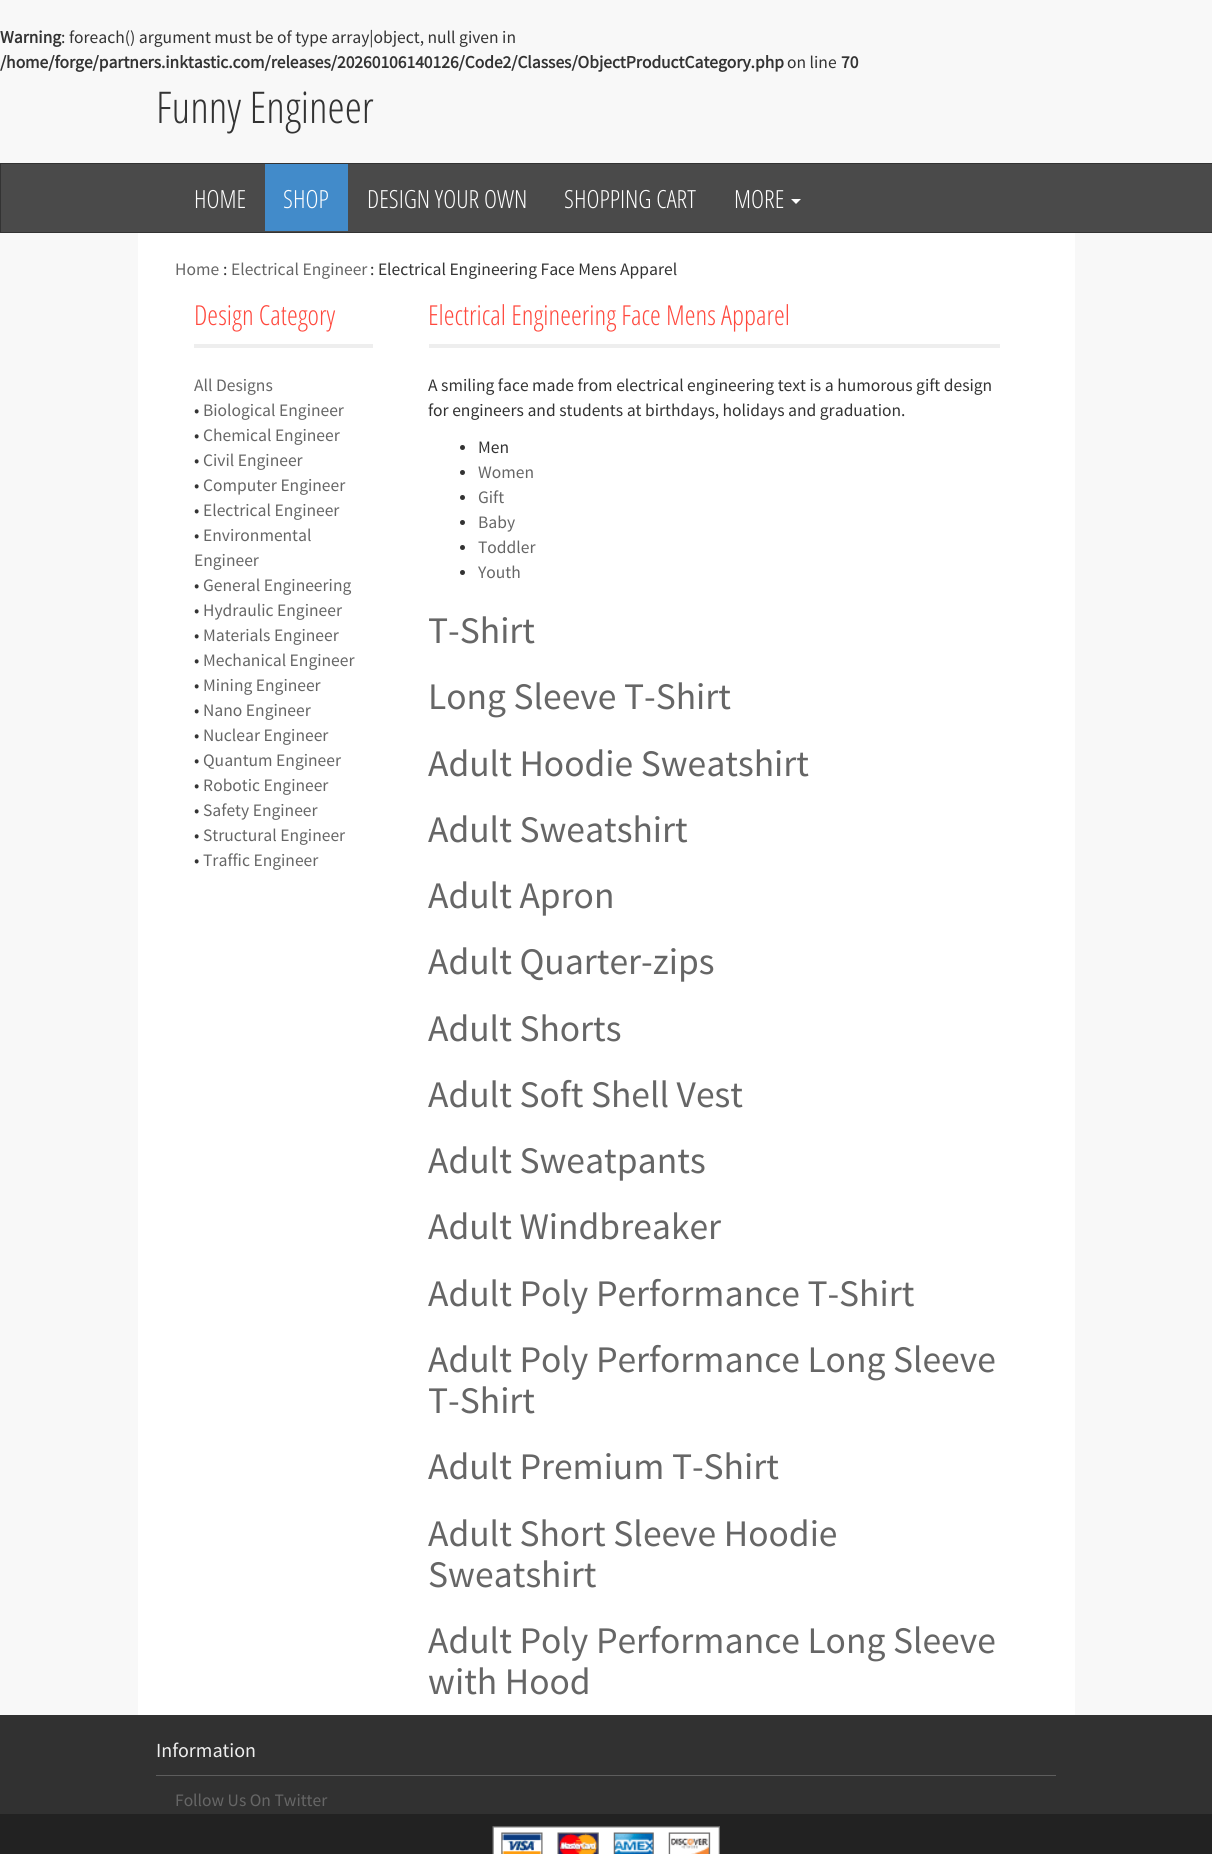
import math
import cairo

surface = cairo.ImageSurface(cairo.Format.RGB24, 1212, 1854)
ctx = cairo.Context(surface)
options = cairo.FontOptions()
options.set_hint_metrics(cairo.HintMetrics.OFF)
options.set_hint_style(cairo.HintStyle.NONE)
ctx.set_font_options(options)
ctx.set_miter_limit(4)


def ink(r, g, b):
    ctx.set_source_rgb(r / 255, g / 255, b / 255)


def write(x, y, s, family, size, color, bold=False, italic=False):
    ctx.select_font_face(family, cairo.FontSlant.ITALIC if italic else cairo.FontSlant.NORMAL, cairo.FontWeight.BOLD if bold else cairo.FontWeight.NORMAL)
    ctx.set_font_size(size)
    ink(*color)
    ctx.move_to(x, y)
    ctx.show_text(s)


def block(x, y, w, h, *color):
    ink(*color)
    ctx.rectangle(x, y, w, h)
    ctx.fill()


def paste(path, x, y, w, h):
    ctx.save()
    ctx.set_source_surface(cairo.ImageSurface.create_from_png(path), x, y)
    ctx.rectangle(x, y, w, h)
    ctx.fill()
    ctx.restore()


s1 = dict(family="Source Sans Pro", size=17.5, color=(51, 51, 51), bold=True)
s2 = dict(family="Source Sans Pro", size=17.5, color=(51, 51, 51))
s3 = dict(family="Open Sans Light", size=43.75, color=(51, 51, 51))
s4 = dict(family="Open Sans Light", size=25, color=(255, 255, 255))
s5 = dict(family="Source Sans Pro", size=17.5, color=(102, 102, 102))
s6 = dict(family="Open Sans Light", size=27.5, color=(255, 72, 61))
s7 = dict(family="Source Sans Pro", size=37.5, color=(102, 102, 102))
s8 = dict(family="Source Sans Pro", size=20, color=(238, 238, 238))

ink(248, 248, 248)
ctx.paint()
write(0, 43, "Warning", **s1)
write(61, 43, ": foreach() argument must be of type array|object, null given in", **s2)
write(0, 68, "/home/forge/partners.inktastic.com/releases/20260106140126/Code2/Classes/ObjectProductCategory.php", **s1)
write(787, 68, "on line", **s2)
write(841, 68, "70", **s1)
write(156, 123, "Funny Engineer", **s3)
ink(74, 74, 74)
ctx.rectangle(0.5, 163.5, 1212, 69)
ctx.fill_preserve()
ink(51, 51, 51)
ctx.set_line_width(1)
ctx.stroke()
write(194, 208, "HOME", **s4)
block(265, 164, 83, 67, 66, 139, 202)
write(283, 208, "SHOP", **s4)
write(367, 208, "DESIGN YOUR OWN", **s4)
write(564, 208, "SHOPPING CART", **s4)
write(734, 208, "MORE", **s4)
ctx.new_path()
ctx.move_to(791, 199)
ctx.line_to(801, 199)
ctx.line_to(796, 204)
ctx.close_path()
ctx.fill()
block(138, 233, 937, 1482, 255, 255, 255)
write(175, 275, "Home", **s5)
write(223, 275, ":", **s2)
write(231, 275, "Electrical Engineer", **s5)
write(370, 275, ": Electrical Engineering Face Mens Apparel", **s2)
block(194, 344, 179, 4, 238, 238, 238)
write(194, 325, "Design Category", **s6)
write(194, 391, "All Designs", **s5)
write(194, 416, "•", **s2)
write(203, 416, "Biological Engineer", **s5)
write(194, 441, "•", **s2)
write(203, 441, "Chemical Engineer", **s5)
write(194, 466, "•", **s2)
write(203, 466, "Civil Engineer", **s5)
write(194, 491, "•", **s2)
write(203, 491, "Computer Engineer", **s5)
write(194, 516, "•", **s2)
write(203, 516, "Electrical Engineer", **s5)
write(194, 541, "•", **s2)
write(203, 541, "Environmental", **s5)
write(194, 566, "Engineer", **s5)
write(194, 591, "•", **s2)
write(203, 591, "General Engineering", **s5)
write(194, 616, "•", **s2)
write(203, 616, "Hydraulic Engineer", **s5)
write(194, 641, "•", **s2)
write(203, 641, "Materials Engineer", **s5)
write(194, 666, "•", **s2)
write(203, 666, "Mechanical Engineer", **s5)
write(194, 691, "•", **s2)
write(203, 691, "Mining Engineer", **s5)
write(194, 716, "•", **s2)
write(203, 716, "Nano Engineer", **s5)
write(194, 741, "•", **s2)
write(203, 741, "Nuclear Engineer", **s5)
write(194, 766, "•", **s2)
write(203, 766, "Quantum Engineer", **s5)
write(194, 791, "•", **s2)
write(203, 791, "Robotic Engineer", **s5)
write(194, 816, "•", **s2)
write(203, 816, "Safety Engineer", **s5)
write(194, 841, "•", **s2)
write(203, 841, "Structural Engineer", **s5)
write(194, 866, "•", **s2)
write(203, 866, "Traffic Engineer", **s5)
block(429, 344, 571, 4, 238, 238, 238)
write(428, 325, "Electrical Engineering Face Mens Apparel", **s6)
write(428, 391, "A smiling face made from electrical engineering text is a humorous gift design", **s2)
write(428, 416, "for engineers and students at birthdays, holidays and graduation.", **s2)
ctx.new_path()
ctx.arc(462.5, 447.5, 2.5, 0, 2 * math.pi)
ctx.fill()
write(478, 453, "Men", **s2)
ctx.new_path()
ctx.arc(462.5, 472.5, 2.5, 0, 2 * math.pi)
ctx.fill()
write(478, 478, "Women", **s5)
ink(51, 51, 51)
ctx.new_path()
ctx.arc(462.5, 497.5, 2.5, 0, 2 * math.pi)
ctx.fill()
write(478, 503, "Gift", **s5)
ink(51, 51, 51)
ctx.new_path()
ctx.arc(462.5, 522.5, 2.5, 0, 2 * math.pi)
ctx.fill()
write(478, 528, "Baby", **s5)
ink(51, 51, 51)
ctx.new_path()
ctx.arc(462.5, 547.5, 2.5, 0, 2 * math.pi)
ctx.fill()
write(478, 553, "Toddler", **s5)
ink(51, 51, 51)
ctx.new_path()
ctx.arc(462.5, 572.5, 2.5, 0, 2 * math.pi)
ctx.fill()
write(478, 578, "Youth", **s5)
write(428, 643, "T-Shirt", **s7)
write(428, 709, "Long Sleeve T-Shirt", **s7)
write(428, 776, "Adult Hoodie Sweatshirt", **s7)
write(428, 842, "Adult Sweatshirt", **s7)
write(428, 908, "Adult Apron", **s7)
write(428, 974, "Adult Quarter-zips", **s7)
write(428, 1041, "Adult Shorts", **s7)
write(428, 1107, "Adult Soft Shell Vest", **s7)
write(428, 1173, "Adult Sweatpants", **s7)
write(428, 1239, "Adult Windbreaker", **s7)
write(428, 1306, "Adult Poly Performance T-Shirt", **s7)
write(428, 1372, "Adult Poly Performance Long Sleeve", **s7)
write(428, 1413, "T-Shirt", **s7)
write(428, 1479, "Adult Premium T-Shirt", **s7)
write(428, 1546, "Adult Short Sleeve Hoodie", **s7)
write(428, 1587, "Sweatshirt", **s7)
write(428, 1653, "Adult Poly Performance Long Sleeve", **s7)
write(428, 1694, "with Hood", **s7)
block(0, 1715, 1212, 99, 49, 49, 49)
block(156, 1775, 900, 1, 93, 93, 93)
write(156, 1757, "Information", **s8)
write(175, 1806, "Follow Us On Twitter", **s5)
block(0, 1814, 1212, 40, 34, 34, 34)
paste("pic1.png", 492, 1826, 228, 28)
surface.write_to_png("screenshot.png")
